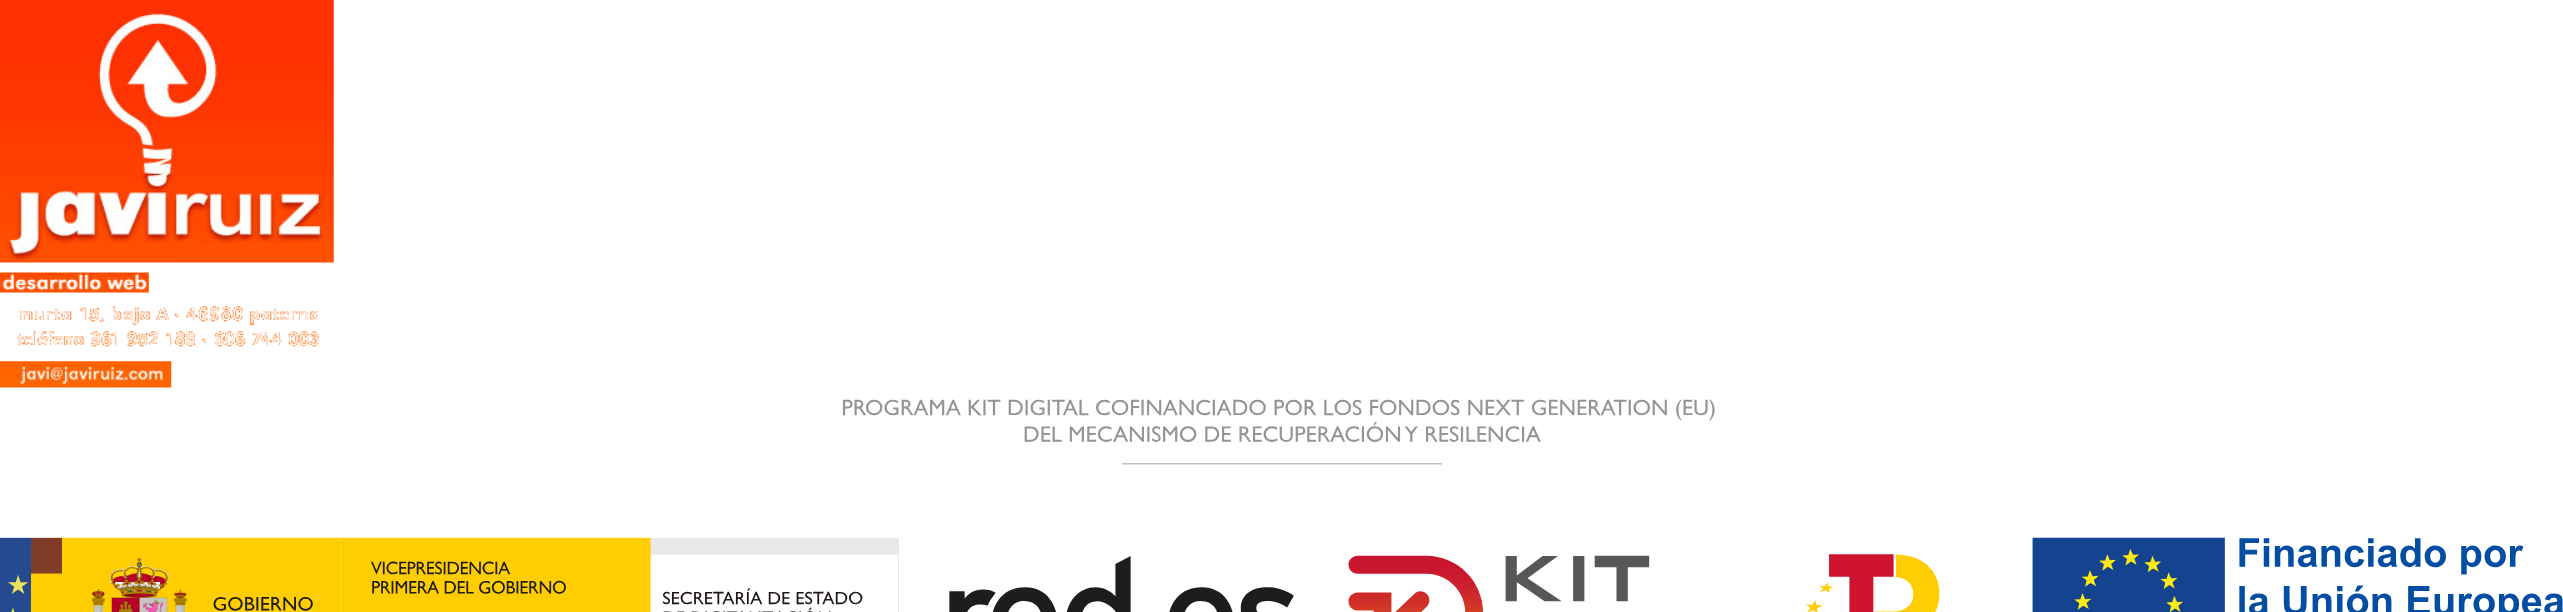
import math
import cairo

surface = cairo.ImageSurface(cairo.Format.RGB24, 2563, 612)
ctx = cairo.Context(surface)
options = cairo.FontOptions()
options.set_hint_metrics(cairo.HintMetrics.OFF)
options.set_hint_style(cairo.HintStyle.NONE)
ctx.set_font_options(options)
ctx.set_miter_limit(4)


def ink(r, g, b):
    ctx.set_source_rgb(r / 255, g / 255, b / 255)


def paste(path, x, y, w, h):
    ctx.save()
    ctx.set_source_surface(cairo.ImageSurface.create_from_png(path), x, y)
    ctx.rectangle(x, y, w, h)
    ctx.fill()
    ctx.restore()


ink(255, 255, 255)
ctx.paint()
paste("pic1.png", 0, 0, 334, 263)
paste("pic2.png", 0, 272, 149, 21)
paste("pic3.png", 17, 306, 302, 41)
paste("pic4.png", 0, 361, 172, 27)
paste("pic5.png", 0, 399, 2563, 213)
surface.write_to_png("screenshot.png")
